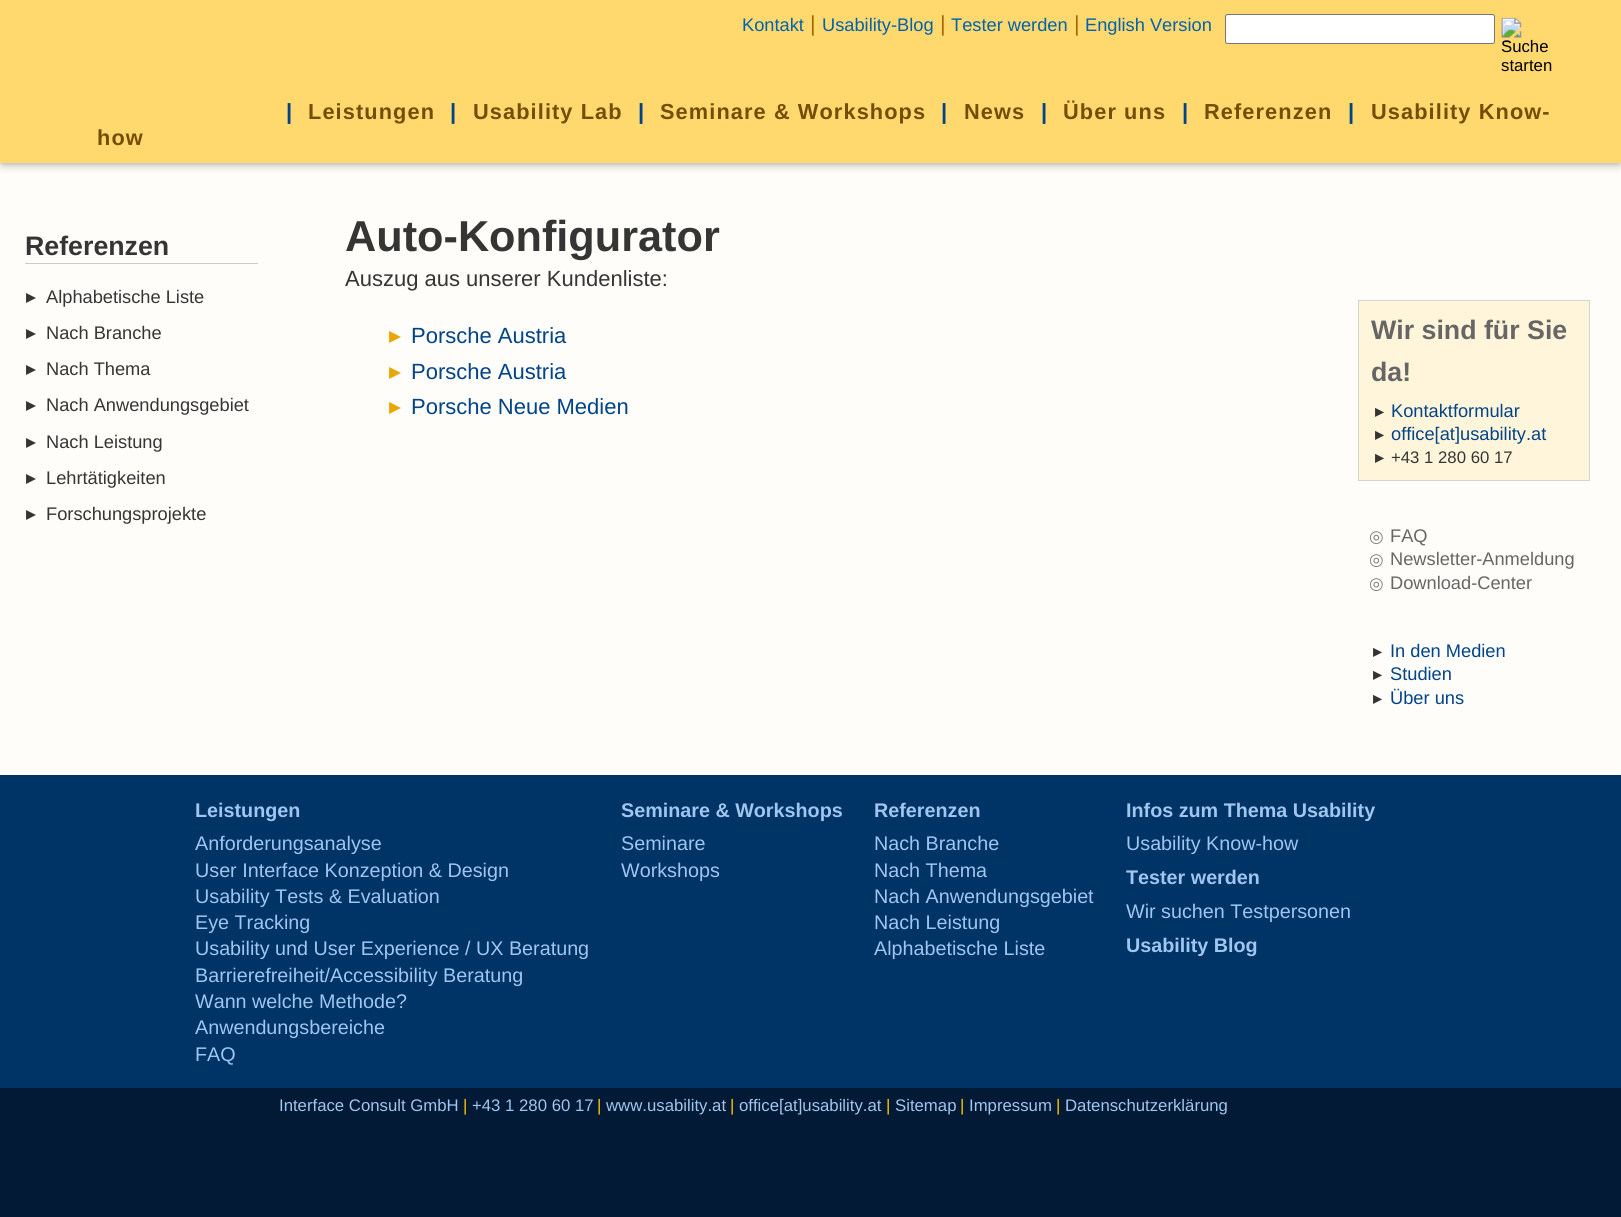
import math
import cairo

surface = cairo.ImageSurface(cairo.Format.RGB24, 1621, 1217)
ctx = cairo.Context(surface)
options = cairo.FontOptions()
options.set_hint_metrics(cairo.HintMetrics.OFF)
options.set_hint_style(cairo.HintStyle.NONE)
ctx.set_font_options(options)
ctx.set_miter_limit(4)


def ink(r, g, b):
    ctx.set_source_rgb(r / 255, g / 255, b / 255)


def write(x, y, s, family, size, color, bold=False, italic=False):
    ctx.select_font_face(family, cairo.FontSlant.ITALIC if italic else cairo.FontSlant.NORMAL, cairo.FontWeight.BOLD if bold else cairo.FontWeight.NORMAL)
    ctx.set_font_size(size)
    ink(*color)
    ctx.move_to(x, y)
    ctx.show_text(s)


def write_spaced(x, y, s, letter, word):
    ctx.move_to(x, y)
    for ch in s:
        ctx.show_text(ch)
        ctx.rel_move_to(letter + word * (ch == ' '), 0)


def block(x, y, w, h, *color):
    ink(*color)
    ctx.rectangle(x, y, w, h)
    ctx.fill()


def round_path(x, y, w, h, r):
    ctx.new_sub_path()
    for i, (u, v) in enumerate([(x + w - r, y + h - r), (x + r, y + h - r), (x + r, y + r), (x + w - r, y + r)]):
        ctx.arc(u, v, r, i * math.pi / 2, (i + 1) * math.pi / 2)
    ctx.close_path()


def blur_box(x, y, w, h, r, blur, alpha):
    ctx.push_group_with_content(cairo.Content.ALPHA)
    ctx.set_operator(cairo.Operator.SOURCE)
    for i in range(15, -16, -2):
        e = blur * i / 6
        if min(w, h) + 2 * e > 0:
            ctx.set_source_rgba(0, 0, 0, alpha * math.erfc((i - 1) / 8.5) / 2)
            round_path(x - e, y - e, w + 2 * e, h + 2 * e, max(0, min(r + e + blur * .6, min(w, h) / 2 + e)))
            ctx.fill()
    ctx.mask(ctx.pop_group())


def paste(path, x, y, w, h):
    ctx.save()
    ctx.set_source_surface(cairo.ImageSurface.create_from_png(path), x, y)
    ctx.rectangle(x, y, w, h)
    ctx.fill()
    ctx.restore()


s1 = dict(family="Liberation Sans", size=18.25, color=(0, 98, 173))
s2 = dict(family="Liberation Sans", size=21.75, color=(163, 107, 0))
s3 = dict(family="Liberation Sans", size=16.75, color=(0, 0, 0))
s4 = dict(family="Liberation Sans", size=22, color=(0, 68, 136), bold=True)
s5 = dict(family="Liberation Sans", size=26.75, color=(53, 53, 53), bold=True)
s6 = dict(family="DejaVu Sans", size=18.25, color=(53, 53, 53), bold=True)
s7 = dict(family="Liberation Sans", size=18.25, color=(53, 53, 53))
s8 = dict(family="Liberation Sans", size=43.25, color=(53, 53, 53), bold=True)
s9 = dict(family="Liberation Sans", size=22, color=(53, 53, 53))
s10 = dict(family="DejaVu Sans", size=22, color=(233, 166, 4), bold=True)
s11 = dict(family="Liberation Sans", size=22, color=(0, 68, 136))
s12 = dict(family="Liberation Sans", size=26.75, color=(102, 102, 102), bold=True)
s13 = dict(family="DejaVu Sans", size=16.75, color=(53, 53, 53), bold=True)
s14 = dict(family="Liberation Sans", size=18.25, color=(0, 68, 136))
s15 = dict(family="Liberation Sans", size=16.75, color=(53, 53, 53))
s16 = dict(family="DejaVu Sans", size=16.75, color=(128, 128, 128))
s17 = dict(family="Liberation Sans", size=18.25, color=(102, 102, 102))
s18 = dict(family="Liberation Sans", size=19.75, color=(160, 197, 239), bold=True)
s19 = dict(family="Liberation Sans", size=19.75, color=(160, 197, 239))
s20 = dict(family="Liberation Sans", size=16.75, color=(160, 197, 239))
s21 = dict(family="Liberation Sans", size=16.75, color=(255, 198, 0))

ink(2, 26, 54)
ctx.paint()
block(0, 163, 1621, 612, 254, 253, 250)
ink(0, 0, 0)
blur_box(3, 3, 1616, 157, 0, 6, 0.75)
block(0, 0, 1621, 163, 255, 216, 110)
write(742, 31, "Kontakt", **s1)
write(810, 31, "|", **s2)
write(822, 31, "Usability-Blog", **s1)
write(940, 31, "|", **s2)
write(951, 31, "Tester werden", **s1)
write(1074, 31, "|", **s2)
write(1085, 31, "English Version", **s1)
ink(255, 255, 255)
round_path(1225.5, 14.5, 269, 29, 2)
ctx.fill_preserve()
ink(118, 118, 118)
ctx.set_line_width(1)
ctx.stroke()
paste("pic1.png", 1501, 17, 21, 26)
write(1501, 52, "Suche", **s3)
write(1501, 71, "starten", **s3)
write(286, 119, "|", **s4)
ctx.set_font_size(21.75)
ink(116, 78, 6)
write_spaced(308, 119, "Leistungen", 1.1, 0)
write(450, 119, "|", **s4)
ctx.set_font_size(21.75)
ink(116, 78, 6)
write_spaced(473, 119, "Usability Lab", 1.1, 0)
write(638, 119, "|", **s4)
ctx.set_font_size(21.75)
ink(116, 78, 6)
write_spaced(660, 119, "Seminare & Workshops", 1.1, 0)
write(941, 119, "|", **s4)
ctx.set_font_size(21.75)
ink(116, 78, 6)
write_spaced(964, 119, "News", 1.1, 0)
write(1041, 119, "|", **s4)
ctx.set_font_size(21.75)
ink(116, 78, 6)
write_spaced(1063, 119, "Über uns", 1.1, 0)
write(1182, 119, "|", **s4)
ctx.set_font_size(21.75)
ink(116, 78, 6)
write_spaced(1204, 119, "Referenzen", 1.1, 0)
write(1348, 119, "|", **s4)
ctx.set_font_size(21.75)
ink(116, 78, 6)
write_spaced(1371, 119, "Usability Know-", 1.1, 0)
write_spaced(97, 145, "how", 1.1, 0)
write(25, 255, "Referenzen", **s5)
block(25, 263, 233, 1, 203, 203, 203)
write(26, 303, "▸", **s6)
write(46, 303, "Alphabetische Liste", **s7)
write(26, 339, "▸", **s6)
write(46, 339, "Nach Branche", **s7)
write(26, 375, "▸", **s6)
write(46, 375, "Nach Thema", **s7)
write(26, 411, "▸", **s6)
write(46, 411, "Nach Anwendungsgebiet", **s7)
write(26, 448, "▸", **s6)
write(46, 448, "Nach Leistung", **s7)
write(26, 484, "▸", **s6)
write(46, 484, "Lehrtätigkeiten", **s7)
write(26, 520, "▸", **s6)
write(46, 520, "Forschungsprojekte", **s7)
write(345, 251, "Auto-Konfigurator", **s8)
write(345, 286, "Auszug aus unserer Kundenliste:", **s9)
write(389, 343, "▸", **s10)
write(411, 343, "Porsche Austria", **s11)
write(389, 379, "▸", **s10)
write(411, 379, "Porsche Austria", **s11)
write(389, 414, "▸", **s10)
write(411, 414, "Porsche Neue Medien", **s11)
ink(255, 245, 219)
ctx.rectangle(1358.5, 300.5, 231, 180)
ctx.fill_preserve()
ink(211, 211, 211)
ctx.stroke()
write(1371, 339, "Wir sind für Sie", **s12)
write(1371, 381, "da!", **s12)
write(1375, 417, "▸", **s13)
write(1391, 417, "Kontaktformular", **s14)
write(1375, 440, "▸", **s13)
write(1391, 440, "office[at]usability.at", **s14)
write(1375, 463, "▸", **s13)
write(1391, 463, "+43 1 280 60 17", **s15)
write(1369, 542, "◎", **s16)
write(1390, 542, "FAQ", **s17)
write(1369, 565, "◎", **s16)
write(1390, 565, "Newsletter-Anmeldung", **s17)
write(1369, 589, "◎", **s16)
write(1390, 589, "Download-Center", **s17)
write(1373, 657, "▸", **s13)
write(1390, 657, "In den Medien", **s14)
write(1373, 680, "▸", **s13)
write(1390, 680, "Studien", **s14)
write(1373, 704, "▸", **s13)
write(1390, 704, "Über uns", **s14)
block(0, 775, 1621, 313, 0, 51, 102)
write(195, 817, "Leistungen", **s18)
write(195, 850, "Anforderungsanalyse", **s19)
write(195, 877, "User Interface Konzeption & Design", **s19)
write(195, 903, "Usability Tests & Evaluation", **s19)
write(195, 929, "Eye Tracking", **s19)
write(195, 955, "Usability und User Experience / UX Beratung", **s19)
write(195, 982, "Barrierefreiheit/Accessibility Beratung", **s19)
write(195, 1008, "Wann welche Methode?", **s19)
write(195, 1034, "Anwendungsbereiche", **s19)
write(195, 1061, "FAQ", **s19)
write(621, 817, "Seminare & Workshops", **s18)
write(621, 850, "Seminare", **s19)
write(621, 877, "Workshops", **s19)
write(874, 817, "Referenzen", **s18)
write(874, 850, "Nach Branche", **s19)
write(874, 877, "Nach Thema", **s19)
write(874, 903, "Nach Anwendungsgebiet", **s19)
write(874, 929, "Nach Leistung", **s19)
write(874, 955, "Alphabetische Liste", **s19)
write(1126, 817, "Infos zum Thema Usability", **s18)
write(1126, 850, "Usability Know-how", **s19)
write(1126, 884, "Tester werden", **s18)
write(1126, 918, "Wir suchen Testpersonen", **s19)
write(1126, 952, "Usability Blog", **s18)
write(279, 1111, "Interface Consult GmbH", **s20)
write(463, 1111, "|", **s21)
write(472, 1111, "+43 1 280 60 17", **s20)
write(597, 1111, "|", **s21)
write(606, 1111, "www.usability.at", **s20)
write(730, 1111, "|", **s21)
write(739, 1111, "office[at]usability.at", **s20)
write(886, 1111, "|", **s21)
write(895, 1111, "Sitemap", **s20)
write(960, 1111, "|", **s21)
write(969, 1111, "Impressum", **s20)
write(1056, 1111, "|", **s21)
write(1065, 1111, "Datenschutzerklärung", **s20)
surface.write_to_png("screenshot.png")
